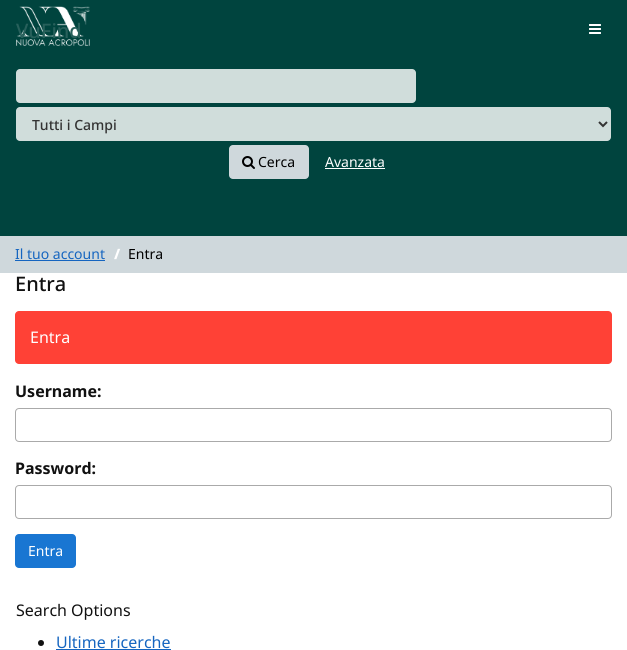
import math
import cairo

surface = cairo.ImageSurface(cairo.Format.RGB24, 627, 650)
ctx = cairo.Context(surface)
options = cairo.FontOptions()
options.set_hint_metrics(cairo.HintMetrics.OFF)
options.set_hint_style(cairo.HintStyle.NONE)
ctx.set_font_options(options)
ctx.set_miter_limit(4)


def ink(r, g, b):
    ctx.set_source_rgb(r / 255, g / 255, b / 255)


def write(x, y, s, family, size, color, bold=False, italic=False):
    ctx.select_font_face(family, cairo.FontSlant.ITALIC if italic else cairo.FontSlant.NORMAL, cairo.FontWeight.BOLD if bold else cairo.FontWeight.NORMAL)
    ctx.set_font_size(size)
    ink(*color)
    ctx.move_to(x, y)
    ctx.show_text(s)


def block(x, y, w, h, *color):
    ink(*color)
    ctx.rectangle(x, y, w, h)
    ctx.fill()


def round_path(x, y, w, h, r):
    ctx.new_sub_path()
    for i, (u, v) in enumerate([(x + w - r, y + h - r), (x + r, y + h - r), (x + r, y + r), (x + w - r, y + r)]):
        ctx.arc(u, v, r, i * math.pi / 2, (i + 1) * math.pi / 2)
    ctx.close_path()


def paste(path, x, y, w, h):
    ctx.save()
    ctx.set_source_surface(cairo.ImageSurface.create_from_png(path), x, y)
    ctx.rectangle(x, y, w, h)
    ctx.fill()
    ctx.restore()


s1 = dict(family="Noto Sans Medium", size=20, color=(39, 96, 91))
s2 = dict(family="Noto Sans Medium", size=14, color=(51, 51, 51))
s3 = dict(family="Noto Sans", size=14, color=(0, 0, 0))
s4 = dict(family="Noto Sans", size=14, color=(255, 255, 255))
s5 = dict(family="Noto Sans", size=14, color=(21, 101, 192))
s6 = dict(family="Noto Sans Black", size=14, color=(255, 255, 255))
s7 = dict(family="Noto Sans Medium", size=20, color=(17, 17, 17))
s8 = dict(family="Noto Sans", size=16, color=(255, 255, 255))
s9 = dict(family="Noto Sans", size=16, color=(17, 17, 17), bold=True)
s10 = dict(family="Noto Sans", size=16, color=(17, 17, 17))
s11 = dict(family="Noto Sans", size=16, color=(21, 101, 192))

ink(255, 255, 255)
ctx.paint()
block(0, 0, 627, 236, 0, 68, 62)
paste("pic1.png", 16, 6, 74, 40)
write(16, 38, "VuFind", **s1)
paste("pic2.png", 589, 24, 12, 10)
ink(208, 221, 219)
round_path(16, 69, 400, 34, 4)
ctx.fill()
round_path(16, 107, 595, 34, 4)
ctx.fill()
ctx.new_path()
ctx.move_to(599, 122)
ctx.line_to(603, 126)
ctx.line_to(607, 122)
ink(51, 51, 51)
ctx.stroke()
write(32, 130, "Tutti i Campi", **s2)
ink(207, 216, 220)
round_path(229, 145, 80, 34, 4)
ctx.fill()
paste("pic3.png", 242, 156, 13, 13)
write(258, 167, "Cerca", **s3)
write(325, 167, "Avanzata", **s4)
block(325, 168, 60, 1, 255, 255, 255)
block(0, 236, 627, 37, 207, 216, 220)
write(15, 259, "Il tuo account", **s5)
block(15, 260, 90, 1, 21, 101, 192)
write(114, 259, "/", **s6)
write(128, 259, "Entra", **s3)
write(15, 291, "Entra", **s7)
ink(255, 65, 54)
round_path(15, 311, 597, 53, 4)
ctx.fill()
write(30, 343, "Entra", **s8)
write(15, 397, "Username:", **s9)
round_path(15.5, 408.5, 596, 33, 3.5)
ink(170, 170, 170)
ctx.set_line_width(1)
ctx.stroke()
write(15, 474, "Password:", **s9)
round_path(15.5, 485.5, 596, 33, 3.5)
ink(170, 170, 170)
ctx.stroke()
ink(25, 118, 210)
round_path(15, 534, 61, 34, 4)
ctx.fill()
write(28, 556, "Entra", **s4)
write(16, 616, "Search Options", **s10)
ctx.new_path()
ctx.arc(41, 643, 3, 0, 2 * math.pi)
ctx.fill()
write(56, 648, "Ultime ricerche", **s11)
block(56, 649, 115, 1, 21, 101, 192)
surface.write_to_png("screenshot.png")
